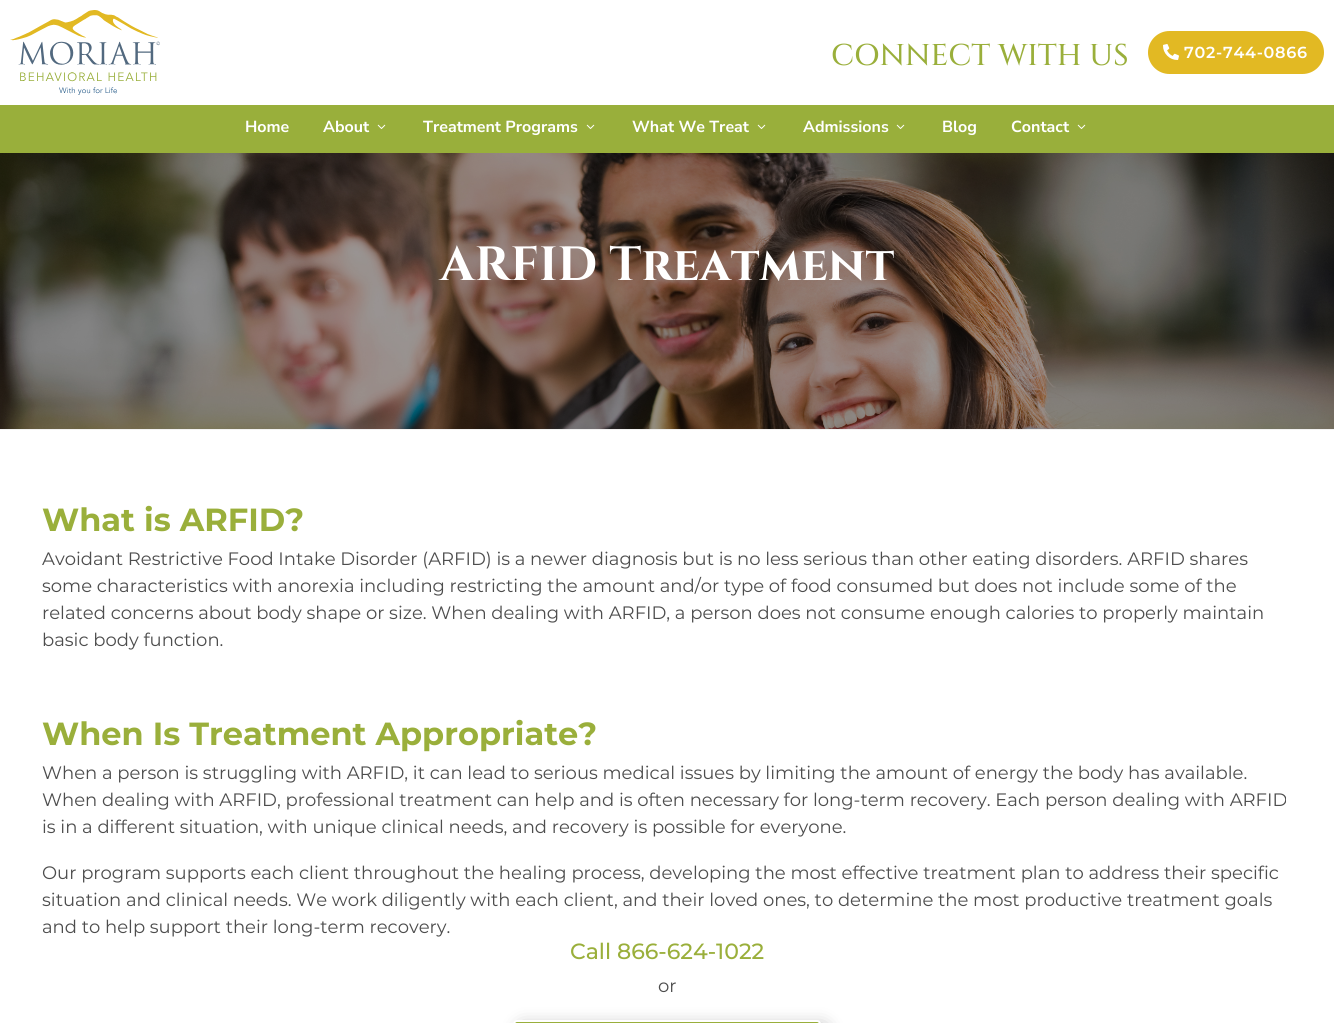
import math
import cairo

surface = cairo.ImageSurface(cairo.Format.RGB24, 1334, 1023)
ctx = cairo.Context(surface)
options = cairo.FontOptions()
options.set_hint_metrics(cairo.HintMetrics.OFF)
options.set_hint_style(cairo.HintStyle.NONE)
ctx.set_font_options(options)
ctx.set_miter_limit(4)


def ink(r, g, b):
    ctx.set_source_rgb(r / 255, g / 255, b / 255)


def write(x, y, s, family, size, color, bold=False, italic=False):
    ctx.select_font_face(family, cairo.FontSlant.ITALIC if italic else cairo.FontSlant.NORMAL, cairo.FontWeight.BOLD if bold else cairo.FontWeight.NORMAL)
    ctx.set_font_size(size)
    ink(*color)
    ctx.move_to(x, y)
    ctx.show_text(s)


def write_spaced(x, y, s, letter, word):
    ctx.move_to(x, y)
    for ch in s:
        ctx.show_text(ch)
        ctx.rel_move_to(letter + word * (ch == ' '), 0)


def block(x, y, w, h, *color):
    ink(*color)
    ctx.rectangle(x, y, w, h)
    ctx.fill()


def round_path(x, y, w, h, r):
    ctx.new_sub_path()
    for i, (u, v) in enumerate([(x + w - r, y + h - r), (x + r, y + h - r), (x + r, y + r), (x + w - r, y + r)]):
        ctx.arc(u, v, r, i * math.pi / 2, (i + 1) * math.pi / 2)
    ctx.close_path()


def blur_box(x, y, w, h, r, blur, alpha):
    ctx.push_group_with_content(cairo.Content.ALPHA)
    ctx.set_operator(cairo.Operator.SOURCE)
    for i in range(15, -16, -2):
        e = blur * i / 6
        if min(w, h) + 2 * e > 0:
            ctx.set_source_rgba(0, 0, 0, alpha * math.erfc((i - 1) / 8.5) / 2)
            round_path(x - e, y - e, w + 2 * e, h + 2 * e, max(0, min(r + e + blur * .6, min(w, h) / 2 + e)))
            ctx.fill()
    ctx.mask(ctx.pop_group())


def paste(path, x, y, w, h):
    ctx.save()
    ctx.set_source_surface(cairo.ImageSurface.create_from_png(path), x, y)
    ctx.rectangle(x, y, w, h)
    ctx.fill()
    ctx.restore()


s1 = dict(family="Cinzel Medium", size=30, color=(154, 175, 59))
s2 = dict(family="Nunito Sans", size=16, color=(255, 255, 255), bold=True)
s3 = dict(family="Cinzel", size=48, color=(255, 255, 255), bold=True)
s4 = dict(family="Montserrat", size=32, color=(154, 175, 59), bold=True)
s5 = dict(family="Montserrat", size=18, color=(77, 77, 77))
s6 = dict(family="Montserrat Medium", size=22, color=(154, 175, 59))

ink(255, 255, 255)
ctx.paint()
paste("pic1.png", 10, 10, 150, 85)
write(831, 65, "CONNECT WITH US", **s1)
ink(226, 185, 35)
round_path(1148, 31, 176, 43, 21.5)
ctx.fill()
paste("pic2.png", 1163, 44, 16, 16)
ctx.select_font_face("Montserrat SemiBold")
ctx.set_font_size(16)
ink(255, 255, 255)
write_spaced(1184, 58, "702-744-0866", 0.75, 0)
block(0, 105, 1334, 48, 153, 175, 59)
write(245, 132, "Home", **s2)
write(323, 132, "About", **s2)
paste("pic3.png", 377, 124, 9, 5)
write(423, 132, "Treatment Programs", **s2)
paste("pic3.png", 586, 124, 9, 5)
write(632, 132, "What We Treat", **s2)
paste("pic3.png", 757, 124, 9, 5)
write(803, 132, "Admissions", **s2)
paste("pic3.png", 896, 124, 9, 5)
write(942, 132, "Blog", **s2)
write(1011, 132, "Contact", **s2)
paste("pic3.png", 1077, 124, 9, 5)
paste("pic4.png", 0, 153, 1334, 276)
block(0, 429, 1334, 1, 242, 242, 242)
write(440, 280, "ARFID Treatment", **s3)
write(42, 531, "What is ARFID?", **s4)
write(42, 565, "Avoidant Restrictive Food Intake Disorder (ARFID) is a newer diagnosis but is no less serious than other eating disorders. ARFID shares", **s5)
write(42, 592, "some characteristics with anorexia including restricting the amount and/or type of food consumed but does not include some of the", **s5)
write(42, 619, "related concerns about body shape or size. When dealing with ARFID, a person does not consume enough calories to properly maintain", **s5)
write(42, 646, "basic body function.", **s5)
write(42, 745, "When Is Treatment Appropriate?", **s4)
write(42, 779, "When a person is struggling with ARFID, it can lead to serious medical issues by limiting the amount of energy the body has available.", **s5)
write(42, 806, "When dealing with ARFID, professional treatment can help and is often necessary for long-term recovery. Each person dealing with ARFID", **s5)
write(42, 833, "is in a different situation, with unique clinical needs, and recovery is possible for everyone.", **s5)
write(42, 879, "Our program supports each client throughout the healing process, developing the most effective treatment plan to address their specific", **s5)
write(42, 906, "situation and clinical needs. We work diligently with each client, and their loved ones, to determine the most productive treatment goals", **s5)
write(42, 933, "and to help support their long-term recovery.", **s5)
write(570, 959, "Call 866-624-1022", **s6)
write(658, 992, "or", **s5)
ink(0, 0, 0)
blur_box(519, 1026, 308, 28, 4, 9, 0.3)
ink(153, 175, 59)
round_path(514, 1021, 306, 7, 3)
ctx.fill_preserve()
ink(255, 255, 255)
ctx.stroke()
surface.write_to_png("screenshot.png")
